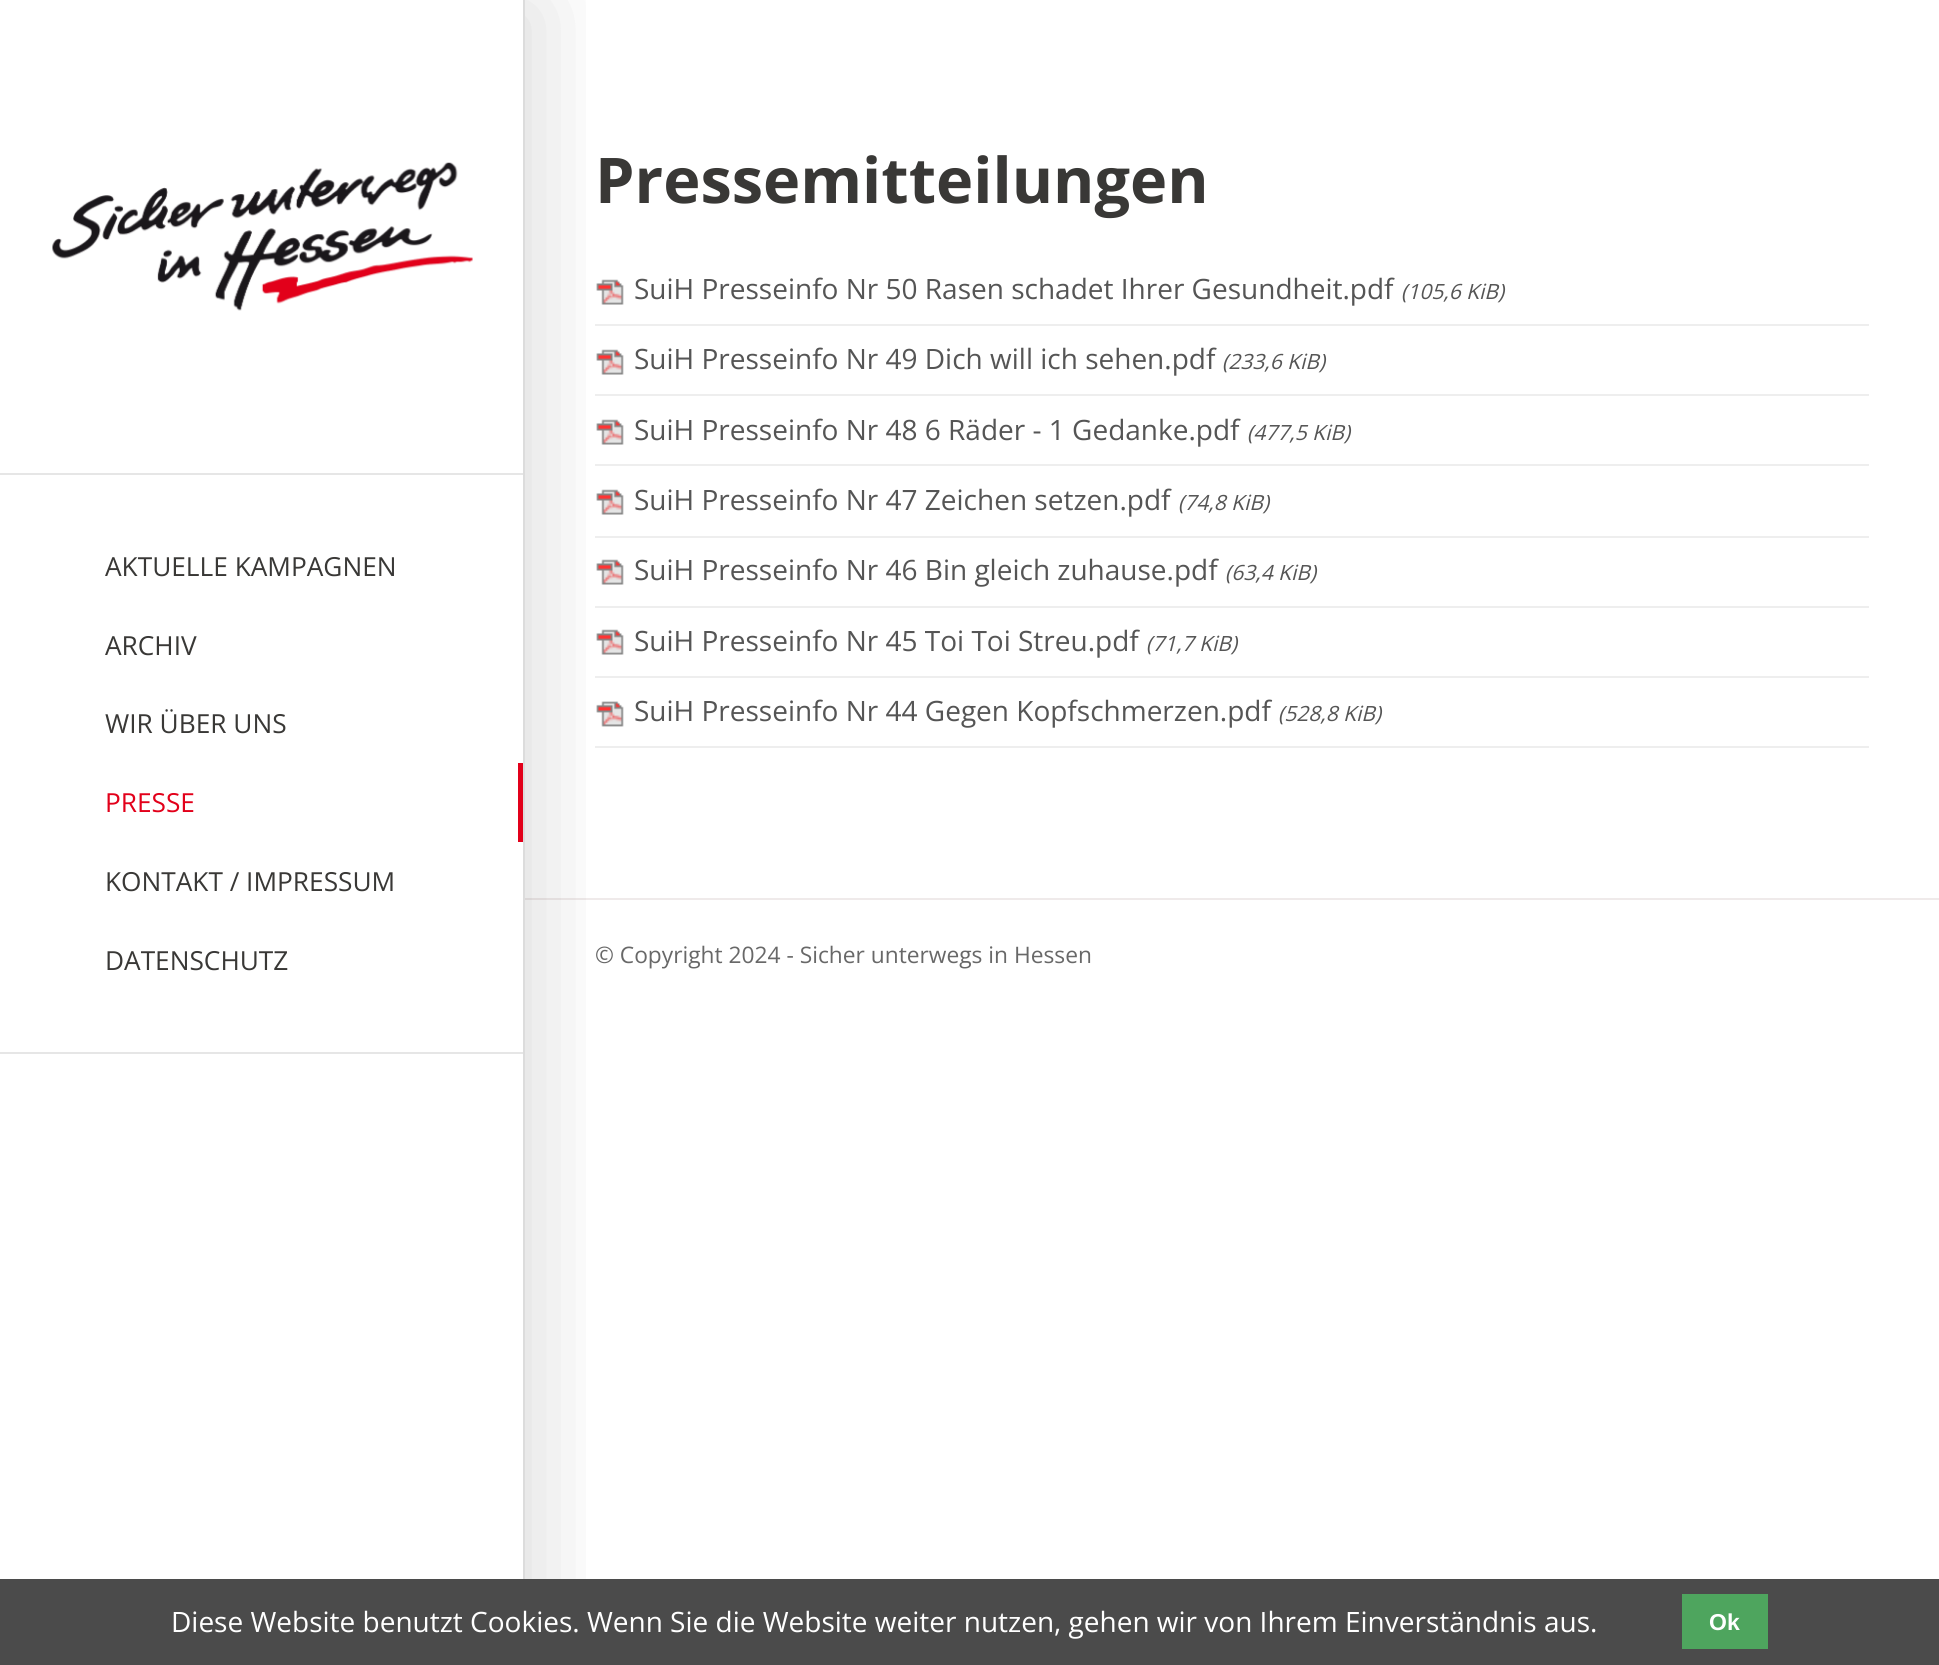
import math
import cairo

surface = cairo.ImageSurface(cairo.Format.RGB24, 1939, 1665)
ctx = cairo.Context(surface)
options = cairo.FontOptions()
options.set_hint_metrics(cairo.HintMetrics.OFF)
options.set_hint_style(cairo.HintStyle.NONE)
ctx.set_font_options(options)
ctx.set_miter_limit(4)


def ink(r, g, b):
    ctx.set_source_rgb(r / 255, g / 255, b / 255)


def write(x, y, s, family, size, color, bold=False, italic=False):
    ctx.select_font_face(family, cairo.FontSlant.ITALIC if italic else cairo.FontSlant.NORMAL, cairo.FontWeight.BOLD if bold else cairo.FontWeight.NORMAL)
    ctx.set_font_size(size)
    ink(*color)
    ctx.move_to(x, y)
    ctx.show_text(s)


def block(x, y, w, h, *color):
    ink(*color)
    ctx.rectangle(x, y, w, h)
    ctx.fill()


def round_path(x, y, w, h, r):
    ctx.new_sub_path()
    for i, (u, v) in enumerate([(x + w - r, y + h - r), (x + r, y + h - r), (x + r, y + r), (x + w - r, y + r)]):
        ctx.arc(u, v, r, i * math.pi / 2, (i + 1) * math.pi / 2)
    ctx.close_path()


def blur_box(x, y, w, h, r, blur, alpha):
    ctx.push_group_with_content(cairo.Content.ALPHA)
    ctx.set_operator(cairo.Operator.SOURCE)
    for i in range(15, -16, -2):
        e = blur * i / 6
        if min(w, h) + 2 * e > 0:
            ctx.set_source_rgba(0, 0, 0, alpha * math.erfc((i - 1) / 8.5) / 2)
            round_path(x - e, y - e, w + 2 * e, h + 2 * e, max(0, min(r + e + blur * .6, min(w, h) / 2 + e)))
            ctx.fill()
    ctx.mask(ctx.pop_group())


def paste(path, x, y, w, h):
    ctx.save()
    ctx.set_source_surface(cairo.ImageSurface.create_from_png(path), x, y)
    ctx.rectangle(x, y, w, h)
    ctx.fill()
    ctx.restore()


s1 = dict(family="Open Sans", size=26.25, color=(57, 56, 54))
s2 = dict(family="Open Sans", size=26.25, color=(226, 0, 26))
s3 = dict(family="Open Sans", size=63, color=(57, 56, 54), bold=True)
s4 = dict(family="Open Sans", size=28, color=(85, 85, 85))
s5 = dict(family="Open Sans", size=21, color=(85, 85, 85), italic=True)
s6 = dict(family="Open Sans", size=22.75, color=(104, 104, 104))
s7 = dict(family="Open Sans", size=28, color=(255, 255, 255))
s8 = dict(family="Liberation Sans", size=23, color=(255, 255, 255), bold=True)

ink(255, 255, 255)
ctx.paint()
block(595, 324, 1274, 2, 238, 238, 238)
paste("pic2.png", 596, 279, 28, 26)
block(595, 394, 1274, 2, 238, 238, 238)
paste("pic2.png", 596, 349, 28, 26)
block(595, 464, 1274, 2, 238, 238, 238)
paste("pic2.png", 596, 419, 28, 26)
block(595, 536, 1274, 2, 238, 238, 238)
paste("pic2.png", 596, 489, 28, 26)
block(595, 606, 1274, 2, 238, 238, 238)
paste("pic2.png", 596, 559, 28, 26)
block(595, 676, 1274, 2, 238, 238, 238)
paste("pic2.png", 596, 629, 28, 26)
block(595, 746, 1274, 2, 238, 238, 238)
paste("pic3.png", 596, 701, 28, 26)
block(525, 898, 1414, 2, 239, 234, 234)
ctx.save()
ctx.rectangle(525, 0, 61, 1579)
ctx.clip()
ink(0, 0, 0)
blur_box(21, 4, 518, 1659, 0, 44, 0.14)
ctx.restore()
block(523, 0, 2, 1579, 220, 220, 220)
paste("pic1.png", 52, 162, 421, 149)
block(0, 473, 523, 2, 230, 230, 230)
block(0, 1052, 523, 2, 230, 230, 230)
write(105, 576, "AKTUELLE KAMPAGNEN", **s1)
write(105, 655, "ARCHIV", **s1)
write(105, 733, "WIR ÜBER UNS", **s1)
write(105, 812, "PRESSE", **s2)
block(518, 763, 5, 79, 226, 0, 26)
write(105, 891, "KONTAKT / IMPRESSUM", **s1)
write(105, 970, "DATENSCHUTZ", **s1)
write(595, 203, "Pressemitteilungen", **s3)
write(634, 299, "SuiH Presseinfo Nr 50 Rasen schadet Ihrer Gesundheit.pdf", **s4)
write(1401, 299, "(105,6 KiB)", **s5)
write(634, 369, "SuiH Presseinfo Nr 49 Dich will ich sehen.pdf", **s4)
write(1222, 369, "(233,6 KiB)", **s5)
write(634, 440, "SuiH Presseinfo Nr 48 6 Räder - 1 Gedanke.pdf", **s4)
write(1247, 440, "(477,5 KiB)", **s5)
write(634, 510, "SuiH Presseinfo Nr 47 Zeichen setzen.pdf", **s4)
write(1178, 510, "(74,8 KiB)", **s5)
write(634, 580, "SuiH Presseinfo Nr 46 Bin gleich zuhause.pdf", **s4)
write(1225, 580, "(63,4 KiB)", **s5)
write(634, 651, "SuiH Presseinfo Nr 45 Toi Toi Streu.pdf", **s4)
write(1146, 651, "(71,7 KiB)", **s5)
write(634, 721, "SuiH Presseinfo Nr 44 Gegen Kopfschmerzen.pdf", **s4)
write(1278, 721, "(528,8 KiB)", **s5)
write(595, 963, "© Copyright 2024 - Sicher unterwegs in Hessen", **s6)
block(0, 1579, 1939, 86, 75, 75, 75)
write(171, 1632, "Diese Website benutzt Cookies. Wenn Sie die Website weiter nutzen, gehen wir von Ihrem Einverständnis aus.", **s7)
block(1682, 1594, 86, 55, 78, 165, 94)
write(1709, 1630, "Ok", **s8)
surface.write_to_png("screenshot.png")
